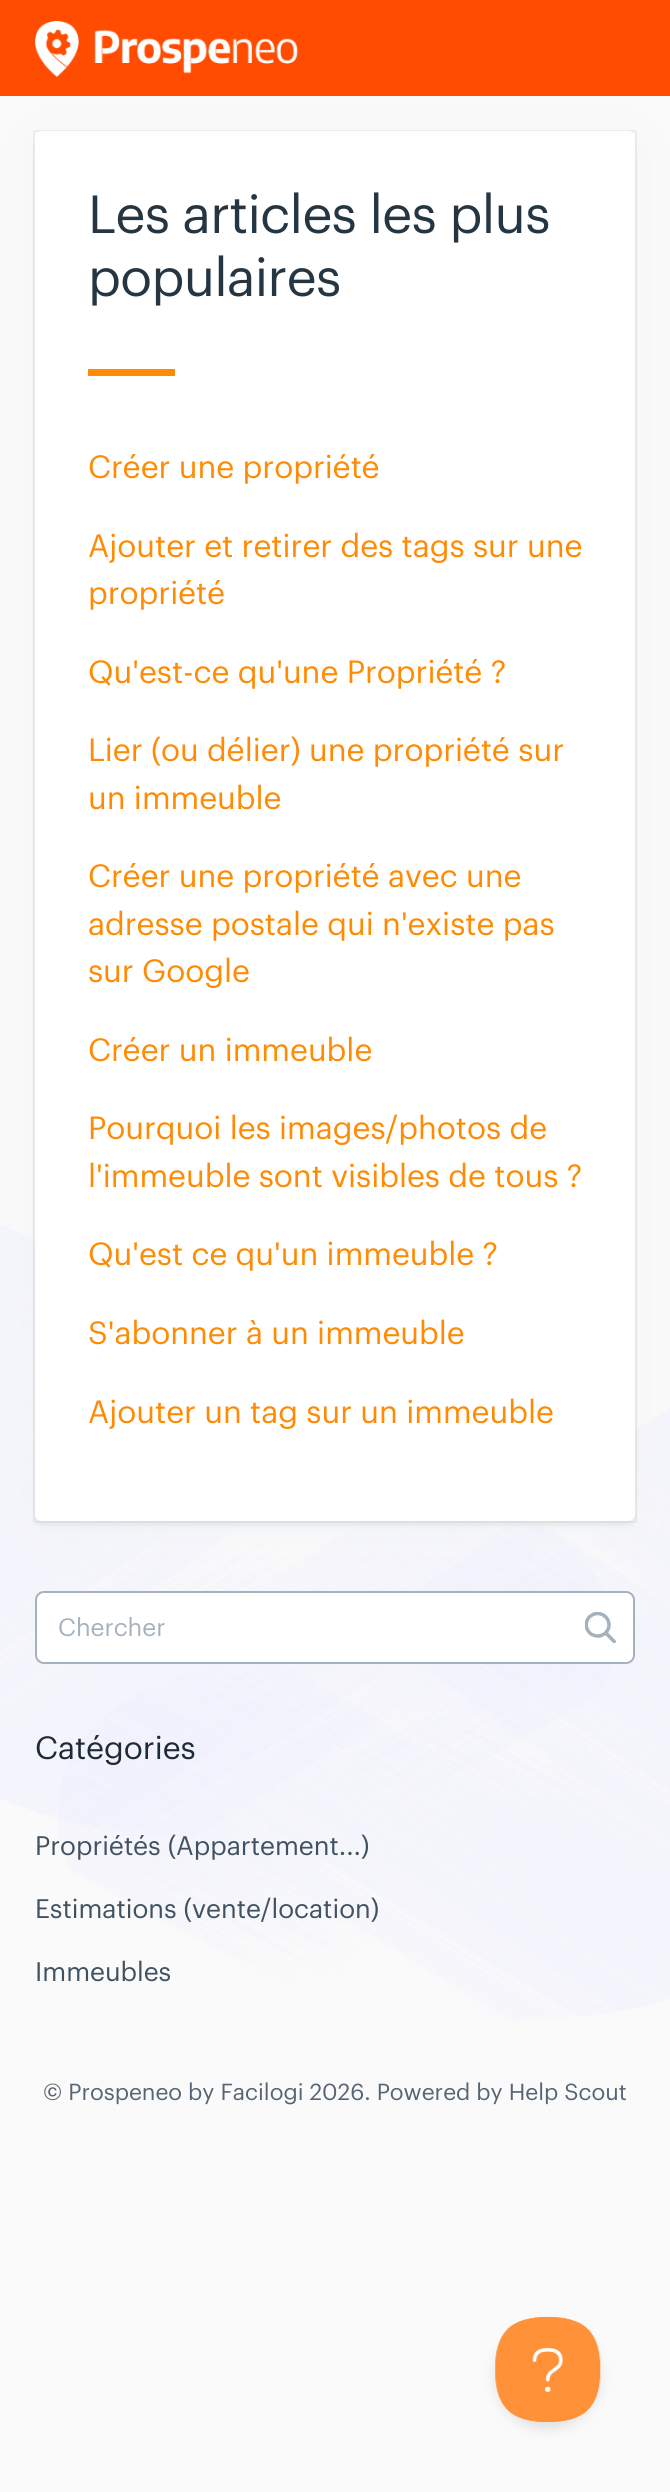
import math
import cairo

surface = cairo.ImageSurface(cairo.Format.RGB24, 670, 2492)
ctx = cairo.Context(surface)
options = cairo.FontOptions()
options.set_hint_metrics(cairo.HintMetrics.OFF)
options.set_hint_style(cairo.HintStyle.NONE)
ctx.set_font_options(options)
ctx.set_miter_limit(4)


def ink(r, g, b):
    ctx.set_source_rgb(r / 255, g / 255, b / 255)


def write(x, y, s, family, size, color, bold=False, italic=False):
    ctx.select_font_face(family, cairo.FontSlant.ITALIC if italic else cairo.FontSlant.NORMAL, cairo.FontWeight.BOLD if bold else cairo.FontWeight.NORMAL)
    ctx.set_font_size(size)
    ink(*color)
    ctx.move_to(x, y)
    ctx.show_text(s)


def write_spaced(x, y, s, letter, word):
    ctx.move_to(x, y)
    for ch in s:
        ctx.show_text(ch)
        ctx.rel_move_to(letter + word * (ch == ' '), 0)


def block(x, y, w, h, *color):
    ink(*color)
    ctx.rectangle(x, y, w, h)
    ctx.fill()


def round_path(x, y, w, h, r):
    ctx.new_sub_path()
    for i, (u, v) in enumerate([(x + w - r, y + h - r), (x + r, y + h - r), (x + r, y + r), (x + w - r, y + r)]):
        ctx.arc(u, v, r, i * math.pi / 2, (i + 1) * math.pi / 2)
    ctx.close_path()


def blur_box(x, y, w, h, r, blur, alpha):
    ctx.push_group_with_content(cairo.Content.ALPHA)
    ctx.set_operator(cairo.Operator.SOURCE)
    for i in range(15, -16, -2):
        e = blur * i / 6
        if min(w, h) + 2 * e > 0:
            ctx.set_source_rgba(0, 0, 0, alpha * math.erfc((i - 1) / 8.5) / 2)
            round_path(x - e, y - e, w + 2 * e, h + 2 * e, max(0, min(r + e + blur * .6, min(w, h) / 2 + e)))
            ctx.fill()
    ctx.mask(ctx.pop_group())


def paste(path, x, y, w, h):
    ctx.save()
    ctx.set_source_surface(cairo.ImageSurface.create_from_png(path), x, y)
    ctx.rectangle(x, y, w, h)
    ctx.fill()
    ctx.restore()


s1 = dict(family="Graphik", size=31.5, color=(255, 138, 3))
s2 = dict(family="Graphik", size=24.5, color=(165, 178, 189))
s3 = dict(family="Graphik", size=31.5, color=(29, 43, 54))
s4 = dict(family="Graphik", size=26.25, color=(64, 82, 97))
s5 = dict(family="Graphik", size=22.75, color=(85, 101, 117))

ink(250, 250, 250)
ctx.paint()
paste("pic1.png", 0, 1225, 670, 796)
ink(241, 243, 245)
blur_box(35, 140, 600, 1390, 7, 17.5, 1)
block(0, 0, 670, 96, 255, 76, 0)
paste("pic2.png", 35, 21, 263, 56)
ink(0, 0, 0)
blur_box(35, 137, 600, 1389, 7, 2.5, 0.05)
ctx.rectangle(34, 131, 602, 1391)
ctx.set_source_rgba(0, 0, 0, 0.05)
ctx.stroke()
ink(255, 255, 255)
round_path(35, 131, 600, 1390, 7)
ctx.fill()
ctx.select_font_face("Graphik")
ctx.set_font_size(52.5)
ink(37, 54, 66)
write_spaced(88, 233, "Les articles les plus", -0.6, 0)
write_spaced(88, 296, "populaires", -0.6, 0)
block(88, 369, 87, 7, 255, 138, 3)
write(88, 478, "Créer une propriété", **s1)
write(88, 557, "Ajouter et retirer des tags sur une", **s1)
write(88, 604, "propriété", **s1)
write(88, 683, "Qu'est-ce qu'une Propriété ?", **s1)
write(88, 761, "Lier (ou délier) une propriété sur", **s1)
write(88, 809, "un immeuble", **s1)
write(88, 887, "Créer une propriété avec une", **s1)
write(88, 935, "adresse postale qui n'existe pas", **s1)
write(88, 982, "sur Google", **s1)
write(88, 1061, "Créer un immeuble", **s1)
write(88, 1139, "Pourquoi les images/photos de", **s1)
write(88, 1187, "l'immeuble sont visibles de tous ?", **s1)
write(88, 1265, "Qu'est ce qu'un immeuble ?", **s1)
write(88, 1344, "S'abonner à un immeuble", **s1)
write(88, 1423, "Ajouter un tag sur un immeuble", **s1)
ink(255, 255, 255)
round_path(36, 1592, 598, 71, 8)
ctx.fill_preserve()
ink(165, 178, 189)
ctx.stroke()
write(58, 1636, "Chercher", **s2)
paste("pic3.png", 585, 1612, 31, 31)
write(35, 1759, "Catégories", **s3)
write(35, 1855, "Propriétés (Appartement...)", **s4)
write(35, 1918, "Estimations (vente/location)", **s4)
write(35, 1981, "Immeubles", **s4)
write(43, 2100, "© Prospeneo by Facilogi 2026. Powered by Help Scout", **s5)
ink(0, 0, 0)
blur_box(495, 2324, 105, 105, 52.5, 6, 0.1)
paste("pic4.png", 495, 2317, 106, 105)
surface.write_to_png("screenshot.png")
